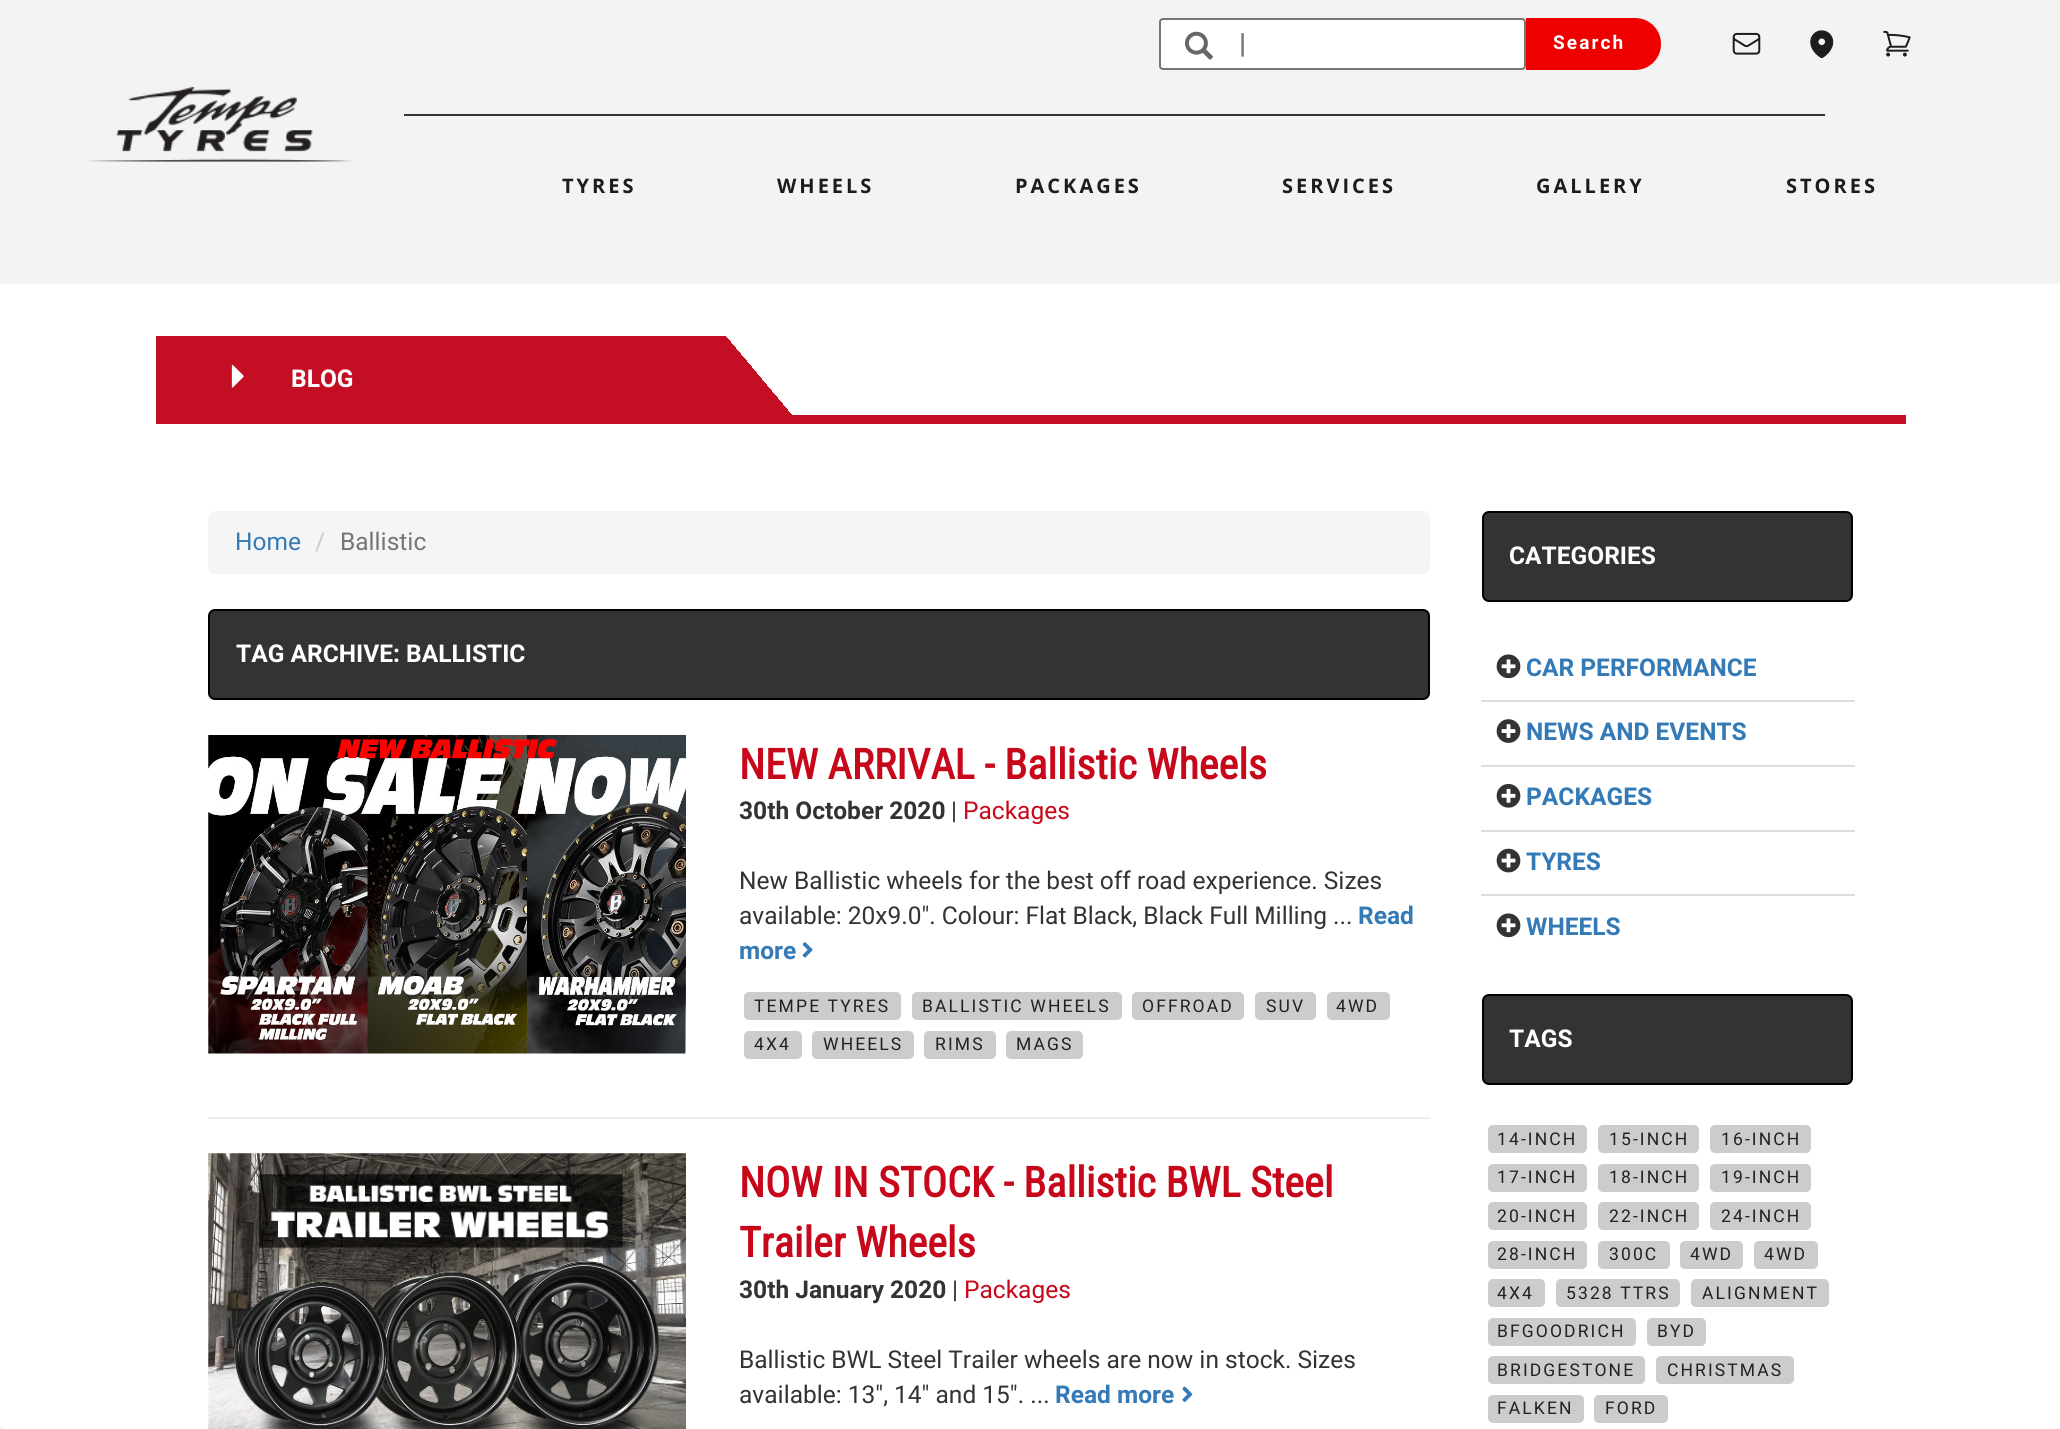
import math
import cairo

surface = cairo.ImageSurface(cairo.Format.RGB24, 2060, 1429)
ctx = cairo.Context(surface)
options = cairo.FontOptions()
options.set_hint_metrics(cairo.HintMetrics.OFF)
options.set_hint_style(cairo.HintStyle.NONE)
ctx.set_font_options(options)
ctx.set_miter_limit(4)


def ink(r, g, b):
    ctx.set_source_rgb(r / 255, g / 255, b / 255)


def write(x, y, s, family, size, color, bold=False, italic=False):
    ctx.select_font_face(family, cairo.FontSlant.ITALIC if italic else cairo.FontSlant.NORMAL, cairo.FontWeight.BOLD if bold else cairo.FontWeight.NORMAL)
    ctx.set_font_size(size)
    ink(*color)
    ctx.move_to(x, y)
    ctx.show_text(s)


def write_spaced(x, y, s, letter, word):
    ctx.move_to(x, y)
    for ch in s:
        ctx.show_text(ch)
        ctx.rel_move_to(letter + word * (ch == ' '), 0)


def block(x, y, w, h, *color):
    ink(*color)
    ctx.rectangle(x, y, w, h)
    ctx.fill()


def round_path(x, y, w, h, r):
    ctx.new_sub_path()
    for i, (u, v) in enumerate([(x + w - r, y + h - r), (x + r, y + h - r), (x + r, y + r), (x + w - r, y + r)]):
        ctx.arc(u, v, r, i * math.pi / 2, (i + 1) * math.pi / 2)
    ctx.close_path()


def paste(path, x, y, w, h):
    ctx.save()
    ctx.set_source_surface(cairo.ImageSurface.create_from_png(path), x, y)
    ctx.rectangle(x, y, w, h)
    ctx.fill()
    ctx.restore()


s1 = dict(family="Heebo", size=28, color=(117, 117, 117), bold=True)
s2 = dict(family="Heebo", size=24.5, color=(255, 255, 255), bold=True)
s3 = dict(family="Heebo", size=24.5, color=(51, 122, 183))
s4 = dict(family="Heebo", size=24.5, color=(204, 204, 204))
s5 = dict(family="Heebo", size=24.5, color=(117, 117, 117))
s6 = dict(family="Roboto Condensed", size=42, color=(199, 8, 27), bold=True)
s7 = dict(family="Heebo", size=24.5, color=(51, 51, 51), bold=True)
s8 = dict(family="Heebo", size=24.5, color=(51, 51, 51))
s9 = dict(family="Heebo", size=24.5, color=(199, 8, 27))
s10 = dict(family="Heebo", size=24.5, color=(51, 122, 183), bold=True)

ink(255, 255, 255)
ctx.paint()
block(0, 0, 2060, 284, 243, 243, 243)
paste("pic1.png", 87, 86, 265, 76)
ink(255, 255, 255)
round_path(1160, 19, 365, 50, 3)
ctx.fill_preserve()
ink(118, 118, 118)
ctx.stroke()
paste("pic2.png", 1185, 31, 28, 29)
write(1239, 53, "|", **s1)
ink(239, 0, 0)
ctx.new_path()
ctx.move_to(1526, 18)
ctx.line_to(1635, 18)
ctx.curve_to(1649.5, 18, 1661, 29.5, 1661, 44)
ctx.curve_to(1661, 58.5, 1649.5, 70, 1635, 70)
ctx.line_to(1526, 70)
ctx.close_path()
ctx.fill()
ctx.set_font_size(19)
ink(255, 255, 255)
write_spaced(1553, 49, "Search", 2.1, 0)
paste("pic3.png", 1732, 32, 29, 23)
paste("pic4.png", 1810, 30, 24, 29)
paste("pic5.png", 1883, 30, 28, 27)
block(404, 114, 1421, 2, 51, 51, 51)
ctx.select_font_face("Open Sans", cairo.FontSlant.NORMAL, cairo.FontWeight.BOLD)
ctx.set_font_size(20)
ink(28, 28, 28)
write_spaced(562, 193, "TYRES", 3, 0)
write_spaced(777, 193, "WHEELS", 3, 0)
write_spaced(1015, 193, "PACKAGES", 3, 0)
write_spaced(1282, 193, "SERVICES", 3, 0)
write_spaced(1536, 193, "GALLERY", 3, 0)
write_spaced(1786, 193, "STORES", 3, 0)
gradient = cairo.LinearGradient(498, 822, 1564, -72)
gradient.add_color_stop_rgba(0.35, 0.769, 0.055, 0.137, 1)
gradient.add_color_stop_rgba(0.35, 1, 1, 1, 1)
ctx.set_source(gradient)
ctx.rectangle(156, 336, 636, 79)
ctx.fill()
block(156, 415, 1750, 9, 196, 14, 35)
paste("pic6.png", 231, 365, 13, 23)
write(291, 387, "BLOG", **s2)
ink(245, 245, 245)
round_path(208, 511, 1222, 63, 7)
ctx.fill()
write(235, 550, "Home", **s3)
write(315, 550, "/", **s4)
write(340, 550, "Ballistic", **s5)
ink(51, 51, 51)
round_path(209, 610, 1220, 89, 6)
ctx.fill_preserve()
ink(0, 0, 0)
ctx.stroke()
write(236, 662, "TAG ARCHIVE: BALLISTIC", **s2)
paste("pic7.png", 208, 735, 478, 319)
write(739, 779, "NEW ARRIVAL - Ballistic Wheels", **s6)
write(739, 819, "30th October 2020", **s7)
write(951, 819, "|", **s8)
write(963, 819, "Packages", **s9)
write(739, 889, "New Ballistic wheels for the best off road experience. Sizes", **s8)
write(739, 924, "available: 20x9.0\". Colour: Flat Black, Black Full Milling ...", **s8)
write(1358, 924, "Read", **s10)
write(739, 959, "more", **s10)
paste("pic8.png", 802, 942, 11, 16)
ink(204, 204, 204)
round_path(744, 992, 157, 28, 5)
ctx.fill()
ctx.select_font_face("Heebo")
ctx.set_font_size(17.5)
ink(34, 34, 34)
write_spaced(754, 1012, "TEMPE TYRES", 2.1, 0)
ink(204, 204, 204)
round_path(912, 992, 210, 28, 5)
ctx.fill()
ink(34, 34, 34)
write_spaced(922, 1012, "BALLISTIC WHEELS", 2.1, 0)
ink(204, 204, 204)
round_path(1132, 992, 112, 28, 5)
ctx.fill()
ink(34, 34, 34)
write_spaced(1142, 1012, "OFFROAD", 2.1, 0)
ink(204, 204, 204)
round_path(1255, 992, 61, 28, 5)
ctx.fill()
ink(34, 34, 34)
write_spaced(1266, 1012, "SUV", 2.1, 0)
ink(204, 204, 204)
round_path(1327, 992, 63, 28, 5)
ctx.fill()
ink(34, 34, 34)
write_spaced(1336, 1012, "4WD", 2.1, 0)
ink(204, 204, 204)
round_path(744, 1031, 58, 28, 5)
ctx.fill()
ink(34, 34, 34)
write_spaced(754, 1050, "4X4", 2.1, 0)
ink(204, 204, 204)
round_path(812, 1031, 102, 28, 5)
ctx.fill()
ink(34, 34, 34)
write_spaced(823, 1050, "WHEELS", 2.1, 0)
ink(204, 204, 204)
round_path(924, 1031, 72, 28, 5)
ctx.fill()
ink(34, 34, 34)
write_spaced(935, 1050, "RIMS", 2.1, 0)
ink(204, 204, 204)
round_path(1006, 1031, 77, 28, 5)
ctx.fill()
ink(34, 34, 34)
write_spaced(1016, 1050, "MAGS", 2.1, 0)
block(208, 1117, 1222, 2, 238, 238, 238)
paste("pic9.png", 208, 1153, 478, 276)
write(739, 1197, "NOW IN STOCK - Ballistic BWL Steel", **s6)
write(739, 1257, "Trailer Wheels", **s6)
write(739, 1298, "30th January 2020", **s7)
write(952, 1298, "|", **s8)
write(964, 1298, "Packages", **s9)
write(739, 1368, "Ballistic BWL Steel Trailer wheels are now in stock. Sizes", **s8)
write(739, 1403, "available: 13\", 14\" and 15\". ...", **s8)
write(1055, 1403, "Read more", **s10)
paste("pic10.png", 1182, 1386, 11, 16)
ink(51, 51, 51)
round_path(1483, 512, 369, 89, 6)
ctx.fill_preserve()
ink(0, 0, 0)
ctx.stroke()
write(1509, 564, "CATEGORIES", **s2)
paste("pic11.png", 1496, 654, 25, 25)
write(1526, 676, "CAR PERFORMANCE", **s10)
block(1481, 700, 374, 2, 221, 221, 221)
paste("pic12.png", 1496, 719, 25, 24)
write(1526, 740, "NEWS AND EVENTS", **s10)
block(1481, 765, 374, 2, 221, 221, 221)
paste("pic13.png", 1496, 783, 25, 25)
write(1526, 805, "PACKAGES", **s10)
block(1481, 830, 374, 2, 221, 221, 221)
paste("pic14.png", 1496, 848, 25, 25)
write(1526, 870, "TYRES", **s10)
block(1481, 894, 374, 2, 221, 221, 221)
paste("pic11.png", 1496, 913, 25, 25)
write(1526, 935, "WHEELS", **s10)
ink(51, 51, 51)
round_path(1483, 995, 369, 89, 6)
ctx.fill_preserve()
ink(0, 0, 0)
ctx.stroke()
write(1509, 1047, "TAGS", **s2)
ink(204, 204, 204)
round_path(1488, 1125, 99, 28, 5)
ctx.fill()
ctx.select_font_face("Heebo")
ctx.set_font_size(17.5)
ink(34, 34, 34)
write_spaced(1497, 1145, "14-INCH", 2.1, 0)
ink(204, 204, 204)
round_path(1598, 1125, 101, 28, 5)
ctx.fill()
ink(34, 34, 34)
write_spaced(1609, 1145, "15-INCH", 2.1, 0)
ink(204, 204, 204)
round_path(1710, 1125, 101, 28, 5)
ctx.fill()
ink(34, 34, 34)
write_spaced(1721, 1145, "16-INCH", 2.1, 0)
ink(204, 204, 204)
round_path(1488, 1164, 99, 28, 5)
ctx.fill()
ink(34, 34, 34)
write_spaced(1497, 1183, "17-INCH", 2.1, 0)
ink(204, 204, 204)
round_path(1598, 1164, 101, 28, 5)
ctx.fill()
ink(34, 34, 34)
write_spaced(1609, 1183, "18-INCH", 2.1, 0)
ink(204, 204, 204)
round_path(1710, 1164, 101, 28, 5)
ctx.fill()
ink(34, 34, 34)
write_spaced(1721, 1183, "19-INCH", 2.1, 0)
ink(204, 204, 204)
round_path(1488, 1202, 99, 28, 5)
ctx.fill()
ink(34, 34, 34)
write_spaced(1497, 1222, "20-INCH", 2.1, 0)
ink(204, 204, 204)
round_path(1598, 1202, 101, 28, 5)
ctx.fill()
ink(34, 34, 34)
write_spaced(1609, 1222, "22-INCH", 2.1, 0)
ink(204, 204, 204)
round_path(1710, 1202, 101, 28, 5)
ctx.fill()
ink(34, 34, 34)
write_spaced(1721, 1222, "24-INCH", 2.1, 0)
ink(204, 204, 204)
round_path(1488, 1241, 99, 28, 5)
ctx.fill()
ink(34, 34, 34)
write_spaced(1497, 1260, "28-INCH", 2.1, 0)
ink(204, 204, 204)
round_path(1598, 1241, 72, 28, 5)
ctx.fill()
ink(34, 34, 34)
write_spaced(1609, 1260, "300C", 2.1, 0)
ink(204, 204, 204)
round_path(1680, 1241, 63, 28, 5)
ctx.fill()
ink(34, 34, 34)
write_spaced(1690, 1260, "4WD", 2.1, 0)
ink(204, 204, 204)
round_path(1754, 1241, 64, 28, 5)
ctx.fill()
ink(34, 34, 34)
write_spaced(1764, 1260, "4WD", 2.1, 0)
ink(204, 204, 204)
round_path(1488, 1279, 57, 28, 5)
ctx.fill()
ink(34, 34, 34)
write_spaced(1497, 1299, "4X4", 2.1, 0)
ink(204, 204, 204)
round_path(1556, 1279, 124, 28, 5)
ctx.fill()
ink(34, 34, 34)
write_spaced(1566, 1299, "5328 TTRS", 2.1, 0)
ink(204, 204, 204)
round_path(1691, 1279, 138, 28, 5)
ctx.fill()
ink(34, 34, 34)
write_spaced(1702, 1299, "ALIGNMENT", 2.1, 0)
ink(204, 204, 204)
round_path(1488, 1318, 148, 28, 5)
ctx.fill()
ink(34, 34, 34)
write_spaced(1497, 1337, "BFGOODRICH", 2.1, 0)
ink(204, 204, 204)
round_path(1647, 1318, 59, 28, 5)
ctx.fill()
ink(34, 34, 34)
write_spaced(1657, 1337, "BYD", 2.1, 0)
ink(204, 204, 204)
round_path(1488, 1356, 157, 28, 5)
ctx.fill()
ink(34, 34, 34)
write_spaced(1497, 1376, "BRIDGESTONE", 2.1, 0)
ink(204, 204, 204)
round_path(1656, 1356, 138, 28, 5)
ctx.fill()
ink(34, 34, 34)
write_spaced(1667, 1376, "CHRISTMAS", 2.1, 0)
ink(204, 204, 204)
round_path(1488, 1395, 96, 28, 5)
ctx.fill()
ink(34, 34, 34)
write_spaced(1497, 1414, "FALKEN", 2.1, 0)
ink(204, 204, 204)
round_path(1594, 1395, 74, 28, 5)
ctx.fill()
ink(34, 34, 34)
write_spaced(1605, 1414, "FORD", 2.1, 0)
block(0, 1426, 4, 3, 245, 245, 245)
surface.write_to_png("screenshot.png")
